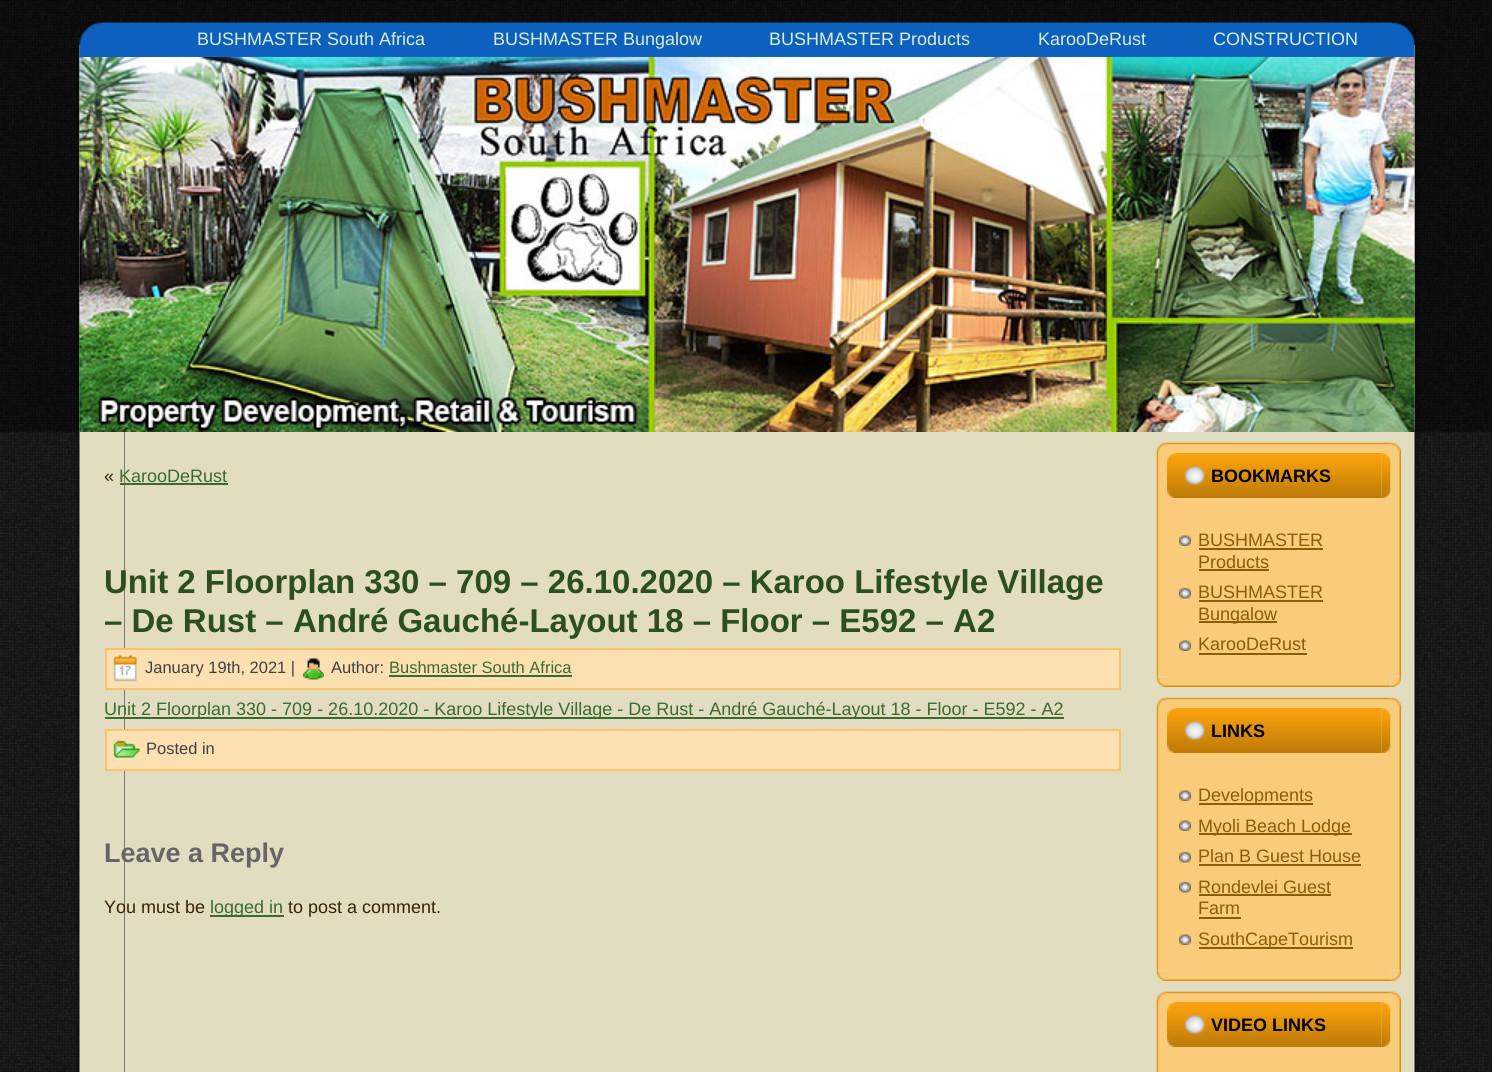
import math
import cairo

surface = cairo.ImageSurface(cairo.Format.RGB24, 1492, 1072)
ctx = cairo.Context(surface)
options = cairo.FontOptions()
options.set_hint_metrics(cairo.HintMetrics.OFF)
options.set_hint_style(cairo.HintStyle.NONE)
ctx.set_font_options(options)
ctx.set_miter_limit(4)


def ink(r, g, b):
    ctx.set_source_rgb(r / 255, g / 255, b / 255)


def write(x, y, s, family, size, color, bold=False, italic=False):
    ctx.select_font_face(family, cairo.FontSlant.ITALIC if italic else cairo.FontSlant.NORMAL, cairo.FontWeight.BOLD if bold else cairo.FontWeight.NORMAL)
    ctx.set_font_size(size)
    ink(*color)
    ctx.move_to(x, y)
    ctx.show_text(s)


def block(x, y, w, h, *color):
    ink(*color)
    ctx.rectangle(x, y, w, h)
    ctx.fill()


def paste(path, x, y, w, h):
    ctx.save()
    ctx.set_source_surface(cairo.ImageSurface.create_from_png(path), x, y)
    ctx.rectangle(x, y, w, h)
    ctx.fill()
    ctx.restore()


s1 = dict(family="Liberation Sans", size=18, color=(217, 237, 212))
s2 = dict(family="Liberation Sans", size=18, color=(54, 35, 2))
s3 = dict(family="Liberation Sans", size=18, color=(59, 107, 46))
s4 = dict(family="Liberation Sans", size=33, color=(43, 79, 34), bold=True)
s5 = dict(family="Liberation Sans", size=16.5, color=(64, 64, 64))
s6 = dict(family="Liberation Sans", size=16.5, color=(59, 107, 46))
s7 = dict(family="Liberation Sans", size=27, color=(102, 102, 102), bold=True)
s8 = dict(family="Liberation Sans", size=18, color=(0, 0, 0), bold=True)
s9 = dict(family="Liberation Sans", size=18, color=(142, 92, 6))

ink(255, 255, 255)
ctx.paint()
paste("pic1.png", 0, 432, 1492, 640)
paste("pic2.png", 0, 0, 1492, 432)
paste("pic3.png", 79, 22, 46, 46)
paste("pic5.png", 1369, 22, 48, 46)
paste("pic4.png", 124, 22, 1246, 1)
paste("pic6.png", 75, 67, 50, 1005)
paste("pic7.png", 79, 22, 1313, 35)
paste("pic8.png", 1392, 22, 23, 35)
write(197, 45, "BUSHMASTER South Africa", **s1)
block(164, 56, 293, 1, 17, 101, 196)
write(493, 45, "BUSHMASTER Bungalow", **s1)
block(459, 56, 276, 1, 17, 101, 196)
write(769, 45, "BUSHMASTER Products", **s1)
block(737, 56, 266, 1, 17, 101, 196)
write(1038, 45, "KarooDeRust", **s1)
block(1005, 56, 174, 1, 17, 101, 196)
write(1213, 45, "CONSTRUCTION", **s1)
block(1181, 56, 211, 1, 17, 101, 196)
paste("pic30.png", 1370, 67, 50, 1005)
paste("pic9.png", 79, 57, 1336, 375)
write(104, 482, "«", **s2)
block(125, 432, 1245, 640, 226, 221, 193)
write(119, 482, "KarooDeRust", **s3)
block(120, 483, 108, 2, 59, 107, 46)
write(104, 593, "Unit 2 Floorplan 330 – 709 – 26.10.2020 – Karoo Lifestyle Village", **s4)
write(104, 632, "– De Rust – André Gauché-Layout 18 – Floor – E592 – A2", **s4)
ink(252, 224, 177)
ctx.rectangle(106, 649, 1014, 40)
ctx.fill_preserve()
ink(249, 195, 103)
ctx.stroke()
paste("pic10.png", 113, 655, 24, 27)
write(145, 673, "January 19th, 2021 |", **s5)
paste("pic11.png", 303, 658, 21, 22)
write(331, 673, "Author:", **s5)
write(389, 673, "Bushmaster South Africa", **s6)
block(389, 675, 183, 2, 59, 107, 46)
block(105, 717, 959, 2, 59, 107, 46)
write(104, 715, "Unit 2 Floorplan 330 - 709 - 26.10.2020 - Karoo Lifestyle Village - De Rust - André Gauché-Layout 18 - Floor - E592 - A2", **s3)
ink(252, 224, 177)
ctx.rectangle(106, 730, 1014, 40)
ctx.fill_preserve()
ink(249, 195, 103)
ctx.stroke()
paste("pic12.png", 113, 740, 27, 18)
write(146, 754, "Posted in", **s5)
write(104, 862, "Leave a Reply", **s7)
write(104, 913, "You must be", **s2)
block(210, 915, 74, 2, 59, 107, 46)
write(210, 913, "logged in", **s3)
write(288, 913, "to post a comment.", **s2)
paste("pic13.png", 1156, 442, 11, 11)
paste("pic15.png", 1390, 442, 11, 11)
paste("pic14.png", 1167, 442, 224, 11)
paste("pic23.png", 1156, 676, 11, 11)
paste("pic16.png", 1156, 453, 11, 224)
paste("pic25.png", 1390, 676, 11, 11)
block(1167, 453, 224, 224, 249, 203, 123)
paste("pic17.png", 1391, 453, 10, 224)
paste("pic18.png", 1167, 453, 215, 45)
paste("pic19.png", 1381, 453, 10, 45)
paste("pic20.png", 1185, 466, 20, 19)
write(1211, 482, "BOOKMARKS", **s8)
paste("pic21.png", 1179, 535, 12, 11)
write(1198, 546, "BUSHMASTER", **s9)
block(1199, 548, 124, 2, 142, 92, 6)
write(1198, 568, "Products", **s9)
block(1199, 569, 70, 2, 142, 92, 6)
paste("pic22.png", 1179, 587, 12, 12)
write(1198, 598, "BUSHMASTER", **s9)
block(1199, 600, 124, 2, 142, 92, 6)
block(1199, 621, 78, 2, 142, 92, 6)
write(1198, 620, "Bungalow", **s9)
paste("pic21.png", 1179, 640, 12, 11)
write(1198, 650, "KarooDeRust", **s9)
block(1199, 653, 108, 2, 142, 92, 6)
paste("pic24.png", 1167, 677, 224, 10)
paste("pic13.png", 1156, 697, 11, 11)
paste("pic15.png", 1390, 697, 11, 11)
paste("pic14.png", 1167, 697, 224, 11)
paste("pic23.png", 1156, 970, 11, 11)
paste("pic26.png", 1156, 708, 11, 263)
paste("pic25.png", 1390, 970, 11, 11)
block(1167, 708, 224, 263, 249, 203, 123)
paste("pic27.png", 1391, 708, 10, 263)
paste("pic18.png", 1167, 708, 215, 45)
paste("pic19.png", 1381, 708, 10, 45)
paste("pic20.png", 1185, 721, 20, 19)
write(1211, 737, "LINKS", **s8)
paste("pic21.png", 1179, 790, 12, 11)
block(1199, 803, 114, 2, 142, 92, 6)
write(1198, 801, "Developments", **s9)
paste("pic21.png", 1179, 820, 12, 11)
block(1199, 833, 153, 2, 142, 92, 6)
write(1198, 832, "Myoli Beach Lodge", **s9)
paste("pic22.png", 1179, 851, 12, 12)
write(1198, 862, "Plan B Guest House", **s9)
block(1199, 864, 162, 2, 142, 92, 6)
paste("pic22.png", 1179, 881, 12, 12)
write(1198, 893, "Rondevlei Guest", **s9)
block(1199, 894, 132, 2, 142, 92, 6)
write(1198, 914, "Farm", **s9)
block(1199, 917, 42, 2, 142, 92, 6)
paste("pic21.png", 1179, 934, 12, 11)
block(1199, 947, 154, 2, 142, 92, 6)
write(1198, 945, "SouthCapeTourism", **s9)
paste("pic24.png", 1167, 971, 224, 10)
paste("pic13.png", 1156, 991, 11, 11)
paste("pic15.png", 1390, 991, 11, 11)
paste("pic14.png", 1167, 991, 224, 11)
paste("pic28.png", 1156, 1002, 11, 70)
block(1167, 1002, 224, 70, 249, 203, 123)
paste("pic29.png", 1391, 1002, 10, 70)
paste("pic18.png", 1167, 1002, 215, 45)
paste("pic19.png", 1381, 1002, 10, 45)
paste("pic20.png", 1185, 1015, 20, 19)
write(1211, 1031, "VIDEO LINKS", **s8)
surface.write_to_png("screenshot.png")
